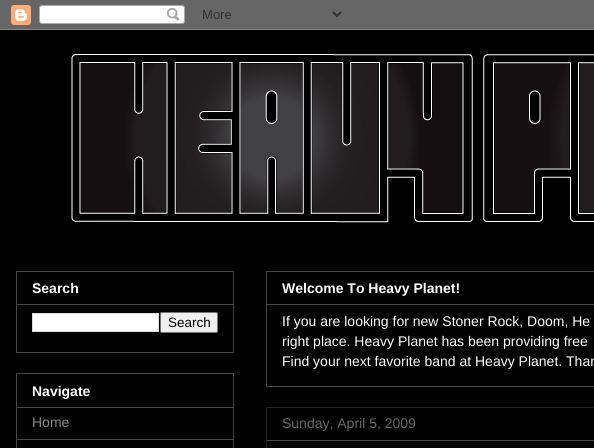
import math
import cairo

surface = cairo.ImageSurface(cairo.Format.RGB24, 594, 448)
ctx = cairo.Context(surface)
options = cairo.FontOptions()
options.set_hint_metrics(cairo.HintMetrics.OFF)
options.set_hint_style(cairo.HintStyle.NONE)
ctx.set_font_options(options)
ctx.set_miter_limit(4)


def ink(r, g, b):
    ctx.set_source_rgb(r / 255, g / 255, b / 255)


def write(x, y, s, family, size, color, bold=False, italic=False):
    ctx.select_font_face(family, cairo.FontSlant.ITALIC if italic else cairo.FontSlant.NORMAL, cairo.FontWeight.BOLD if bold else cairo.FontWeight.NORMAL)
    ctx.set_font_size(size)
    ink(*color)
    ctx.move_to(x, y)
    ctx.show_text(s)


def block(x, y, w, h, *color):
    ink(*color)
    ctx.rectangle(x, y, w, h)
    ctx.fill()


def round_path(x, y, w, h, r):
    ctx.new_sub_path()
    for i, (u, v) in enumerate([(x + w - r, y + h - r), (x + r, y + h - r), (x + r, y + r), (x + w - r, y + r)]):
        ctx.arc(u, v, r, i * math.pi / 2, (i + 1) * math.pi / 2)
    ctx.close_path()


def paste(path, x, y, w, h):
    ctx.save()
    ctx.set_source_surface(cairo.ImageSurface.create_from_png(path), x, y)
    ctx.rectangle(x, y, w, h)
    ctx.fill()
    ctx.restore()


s1 = dict(family="Liberation Sans", size=14, color=(255, 255, 255), bold=True)
s2 = dict(family="Liberation Sans", size=13.5, color=(0, 0, 0))
s3 = dict(family="Liberation Sans", size=14, color=(136, 136, 136))
s4 = dict(family="Liberation Sans", size=14, color=(255, 255, 255))
s5 = dict(family="Liberation Sans", size=14, color=(102, 102, 102))

ink(0, 0, 0)
ctx.paint()
paste("pic1.png", 0, 0, 594, 30)
paste("pic2.png", 71, 54, 523, 169)
ctx.rectangle(16.5, 271.5, 217, 81)
ink(68, 68, 68)
ctx.set_line_width(1)
ctx.stroke()
write(32, 293, "Search", **s1)
block(17, 304, 216, 1, 68, 68, 68)
ink(255, 255, 255)
ctx.rectangle(32.5, 313.5, 126, 18)
ctx.fill_preserve()
ink(221, 221, 221)
ctx.stroke()
ink(239, 239, 239)
round_path(160.5, 312.5, 57, 20, 1.5)
ctx.fill_preserve()
ink(118, 118, 118)
ctx.stroke()
write(168, 327, "Search", **s2)
ctx.rectangle(16.5, 373.5, 217, 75)
ink(68, 68, 68)
ctx.stroke()
write(32, 396, "Navigate", **s1)
block(17, 407, 216, 1, 68, 68, 68)
write(32, 427, "Home", **s3)
block(17, 439, 216, 1, 68, 68, 68)
ctx.rectangle(266.5, 271.5, 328, 115)
ctx.stroke()
write(282, 293, "Welcome To Heavy Planet!", **s1)
block(267, 304, 327, 1, 68, 68, 68)
write(282, 326, "If you are looking for new Stoner Rock, Doom, He", **s4)
write(282, 346, "right place. Heavy Planet has been providing free", **s4)
write(282, 366, "Find your next favorite band at Heavy Planet. Than", **s4)
ctx.rectangle(266.5, 407.5, 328, 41)
ink(34, 34, 34)
ctx.stroke()
write(282, 428, "Sunday, April 5, 2009", **s5)
block(267, 440, 327, 1, 68, 68, 68)
surface.write_to_png("screenshot.png")
